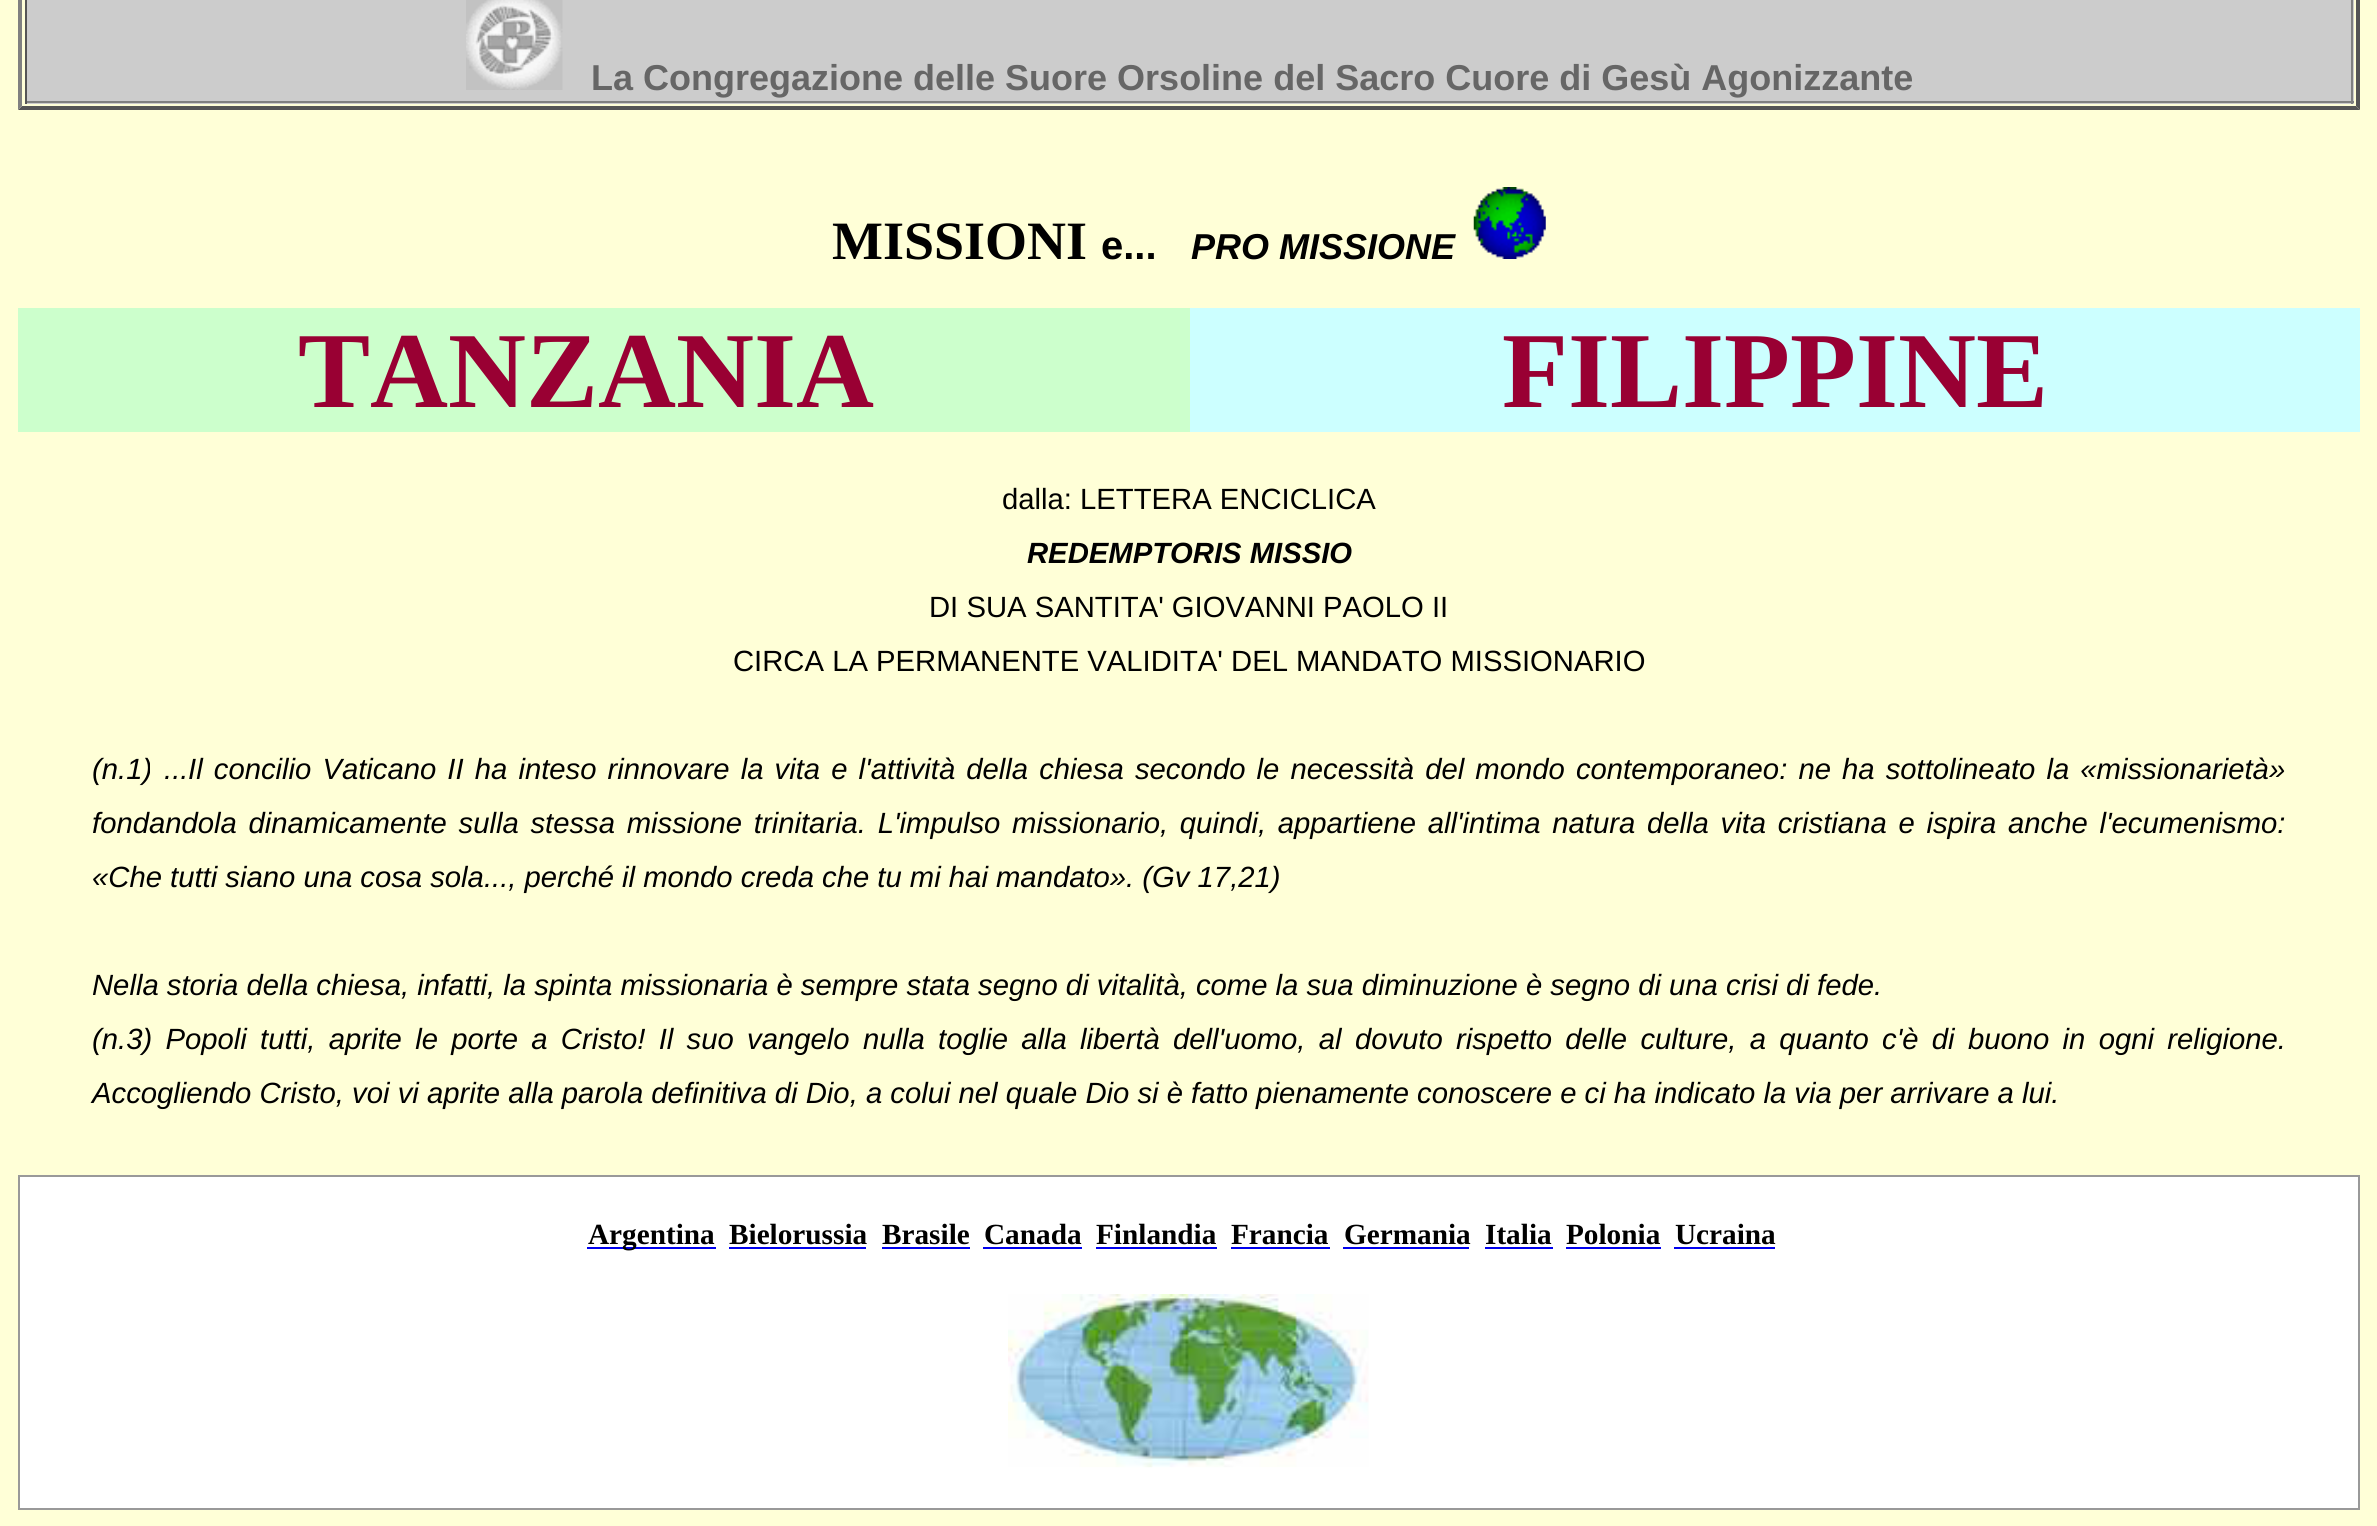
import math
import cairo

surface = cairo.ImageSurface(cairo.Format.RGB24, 2377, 1526)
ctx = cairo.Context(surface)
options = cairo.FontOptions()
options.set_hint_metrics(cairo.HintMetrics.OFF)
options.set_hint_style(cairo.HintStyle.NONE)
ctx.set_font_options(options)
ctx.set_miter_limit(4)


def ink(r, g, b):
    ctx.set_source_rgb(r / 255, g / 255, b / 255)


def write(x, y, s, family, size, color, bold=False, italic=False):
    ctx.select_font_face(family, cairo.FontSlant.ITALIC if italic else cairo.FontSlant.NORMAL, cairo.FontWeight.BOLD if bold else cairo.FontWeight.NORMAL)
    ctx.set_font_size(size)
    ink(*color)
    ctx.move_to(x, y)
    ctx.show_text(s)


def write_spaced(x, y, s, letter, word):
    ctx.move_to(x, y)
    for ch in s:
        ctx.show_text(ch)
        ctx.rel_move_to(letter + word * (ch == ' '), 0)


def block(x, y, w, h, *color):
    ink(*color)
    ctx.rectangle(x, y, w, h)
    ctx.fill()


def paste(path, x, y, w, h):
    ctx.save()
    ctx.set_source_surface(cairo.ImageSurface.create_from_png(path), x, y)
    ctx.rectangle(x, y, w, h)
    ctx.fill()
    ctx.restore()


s1 = dict(family="Liberation Sans", size=36, color=(102, 102, 102), bold=True)
s2 = dict(family="Liberation Serif", size=54, color=(0, 0, 0), bold=True)
s3 = dict(family="Liberation Sans", size=40, color=(0, 0, 0), bold=True)
s4 = dict(family="Liberation Sans", size=36, color=(0, 0, 0), bold=True, italic=True)
s5 = dict(family="Liberation Serif", size=108, color=(153, 0, 51), bold=True)
s6 = dict(family="Liberation Sans", size=29.25, color=(0, 0, 0))
s7 = dict(family="Liberation Sans", size=29.25, color=(0, 0, 0), bold=True, italic=True)
s8 = dict(family="Liberation Sans", size=29.25, color=(0, 0, 0), italic=True)
s9 = dict(family="Liberation Serif", size=29.25, color=(0, 0, 0), bold=True)

ink(255, 255, 215)
ctx.paint()
ink(85, 85, 85)
ctx.new_path()
ctx.move_to(2360, -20)
ctx.line_to(2360, 110)
ctx.line_to(2356, 106)
ctx.line_to(2356, -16)
ctx.close_path()
ctx.fill()
ctx.new_path()
ctx.move_to(2360, 110)
ctx.line_to(18, 110)
ctx.line_to(22, 106)
ctx.line_to(2356, 106)
ctx.close_path()
ctx.fill()
ink(128, 128, 128)
ctx.new_path()
ctx.move_to(18, 110)
ctx.line_to(18, -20)
ctx.line_to(22, -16)
ctx.line_to(22, 106)
ctx.close_path()
ctx.fill()
block(27, 0, 2327, 104, 204, 204, 204)
block(2351, 0, 2, 104, 128, 128, 128)
block(25, 101, 2329, 2, 128, 128, 128)
block(25, 0, 2, 104, 85, 85, 85)
paste("pic1.png", 466, 0, 97, 90)
write(591, 90, "La Congregazione delle Suore Orsoline del Sacro Cuore di Gesù Agonizzante", **s1)
write(832, 259, "MISSIONI", **s2)
write(1101, 259, "e...", **s3)
write(1191, 259, "PRO MISSIONE", **s4)
paste("pic2.png", 1473, 187, 73, 72)
block(18, 308, 1172, 124, 204, 255, 204)
write(298, 407, "TANZANIA", **s5)
block(1190, 308, 1170, 124, 204, 255, 255)
write(1502, 407, "FILIPPINE", **s5)
write(1002, 509, "dalla: LETTERA ENCICLICA", **s6)
write(1027, 563, "REDEMPTORIS MISSIO", **s7)
write(929, 617, "DI SUA SANTITA' GIOVANNI PAOLO II", **s6)
write(733, 671, "CIRCA LA PERMANENTE VALIDITA' DEL MANDATO MISSIONARIO", **s6)
write(92, 779, "(n.1)", **s8)
write(164, 779, "...", **s8)
write_spaced(188, 779, "Il concilio Vaticano II ha inteso rinnovare la vita e l'attività della chiesa secondo le necessità del mondo contemporaneo: ne ha sottolineato la «missionarietà»", 0, 3)
write_spaced(92, 833, "fondandola dinamicamente sulla stessa missione trinitaria. L'impulso missionario, quindi, appartiene all'intima natura della vita cristiana e ispira anche l'ecumenismo:", 0, 3.6)
write(92, 887, "«Che tutti siano una cosa sola..., perché il mondo creda che tu mi hai mandato». (Gv 17,21)", **s8)
write(92, 995, "Nella storia della chiesa, infatti, la spinta missionaria è sempre stata segno di vitalità, come la sua diminuzione è segno di una crisi di fede.", **s8)
write_spaced(92, 1049, "(n.3) Popoli tutti, aprite le porte a Cristo! Il suo vangelo nulla toglie alla libertà dell'uomo, al dovuto rispetto delle culture, a quanto c'è di buono in ogni religione.", 0, 5.2)
write(92, 1103, "Accogliendo Cristo, voi vi aprite alla parola definitiva di Dio, a colui nel quale Dio si è fatto pienamente conoscere e ci ha indicato la via per arrivare a lui.", **s8)
block(18, 1175, 2340, 333, 153, 153, 153)
block(2358, 1175, 2, 335, 153, 153, 153)
block(18, 1508, 2342, 2, 153, 153, 153)
block(20, 1177, 2338, 331, 255, 255, 255)
block(587, 1247, 129, 2, 0, 0, 238)
write(588, 1244, "Argentina", **s9)
write(729, 1244, "Bielorussia", **s9)
block(729, 1247, 137, 2, 0, 0, 238)
write(882, 1244, "Brasile", **s9)
block(882, 1247, 88, 2, 0, 0, 238)
write(984, 1244, "Canada", **s9)
block(983, 1247, 99, 2, 0, 0, 238)
write(1096, 1244, "Finlandia", **s9)
block(1096, 1247, 121, 2, 0, 0, 238)
write(1231, 1244, "Francia", **s9)
block(1231, 1247, 99, 2, 0, 0, 238)
write(1344, 1244, "Germania", **s9)
block(1343, 1247, 126, 2, 0, 0, 238)
write(1485, 1244, "Italia", **s9)
block(1485, 1247, 68, 2, 0, 0, 238)
write(1566, 1244, "Polonia", **s9)
block(1566, 1247, 95, 2, 0, 0, 238)
write(1675, 1244, "Ucraina", **s9)
block(1674, 1247, 101, 2, 0, 0, 238)
paste("pic3.png", 1008, 1294, 361, 174)
surface.write_to_png("screenshot.png")
